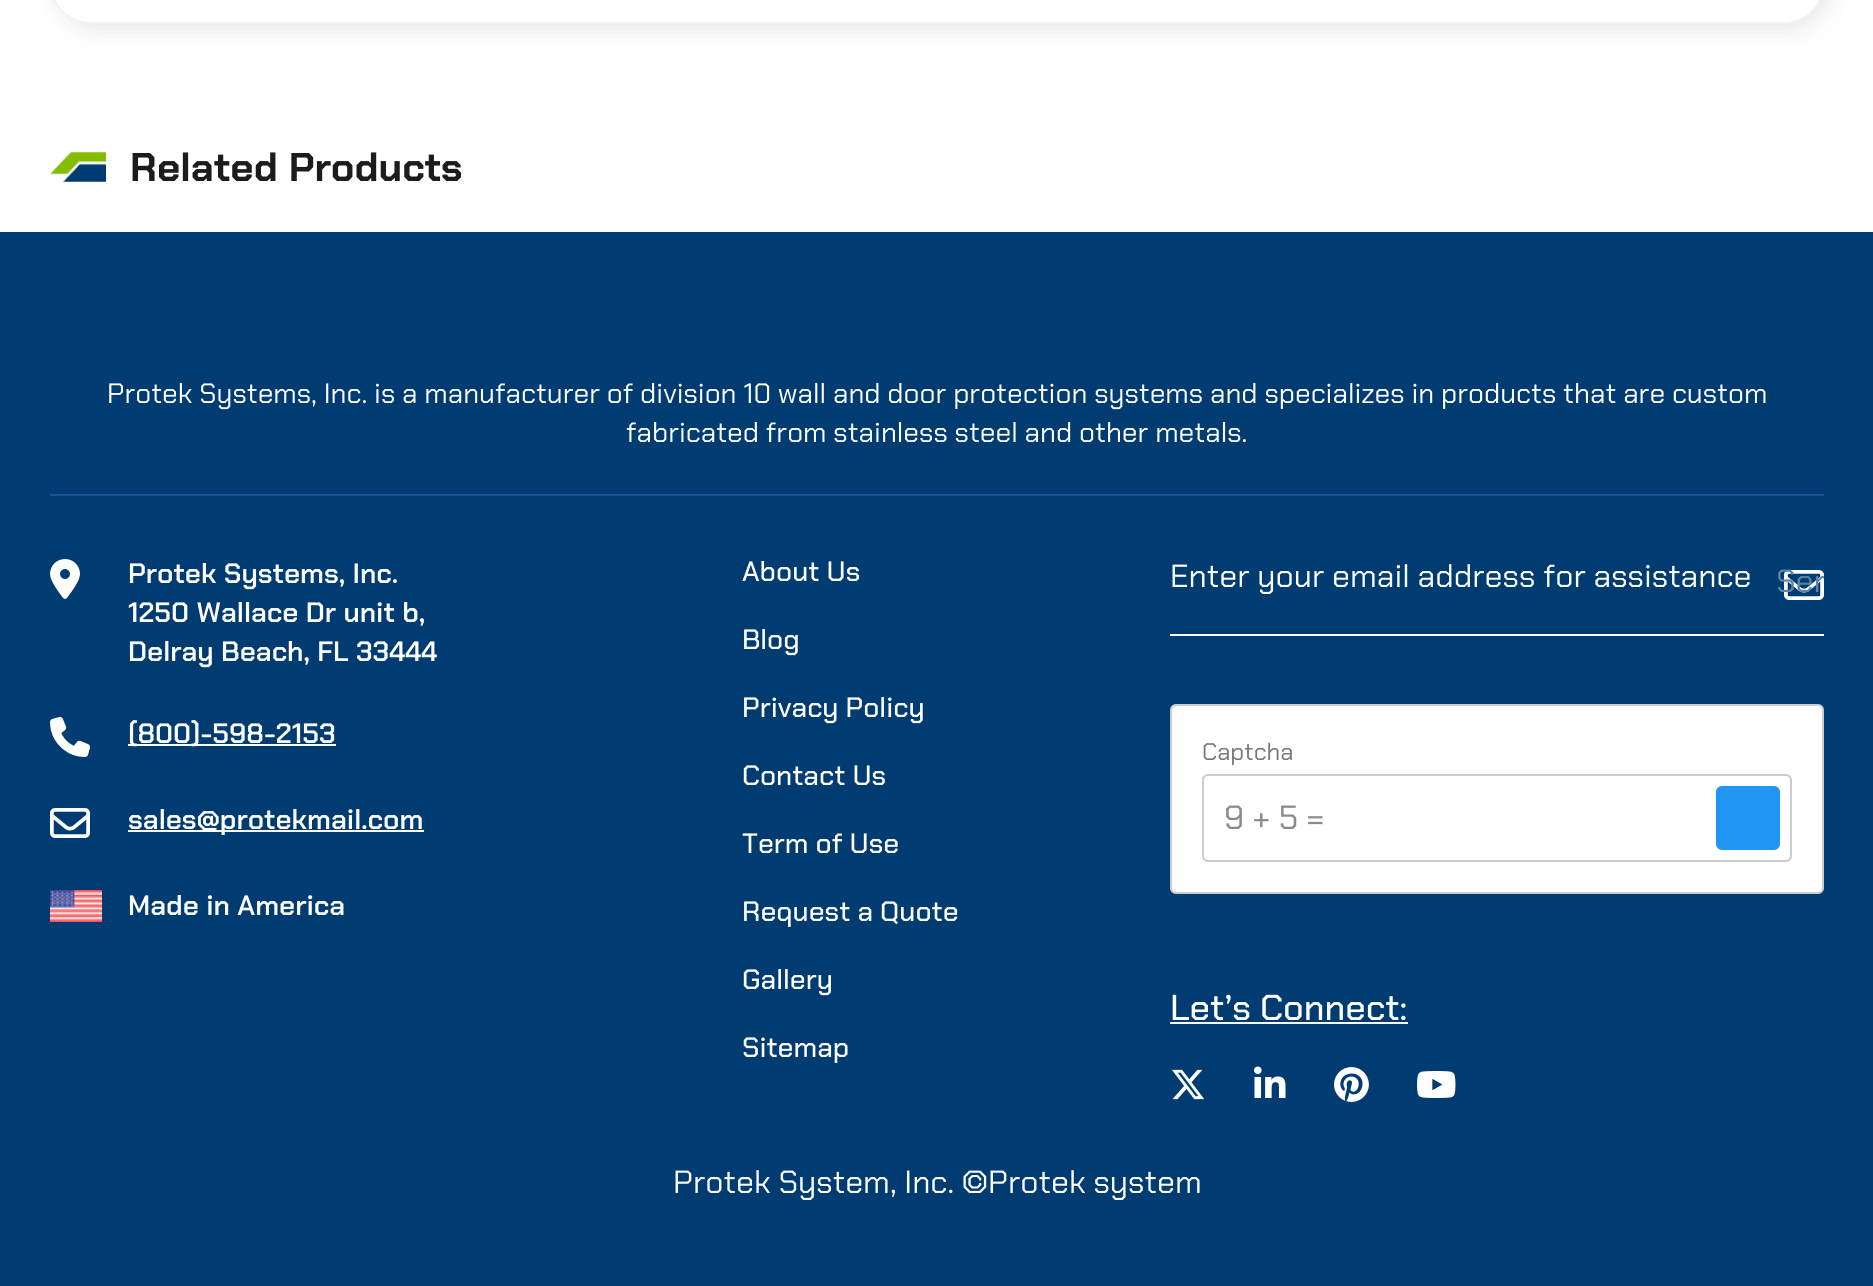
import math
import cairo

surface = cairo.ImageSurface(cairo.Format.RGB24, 1873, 1286)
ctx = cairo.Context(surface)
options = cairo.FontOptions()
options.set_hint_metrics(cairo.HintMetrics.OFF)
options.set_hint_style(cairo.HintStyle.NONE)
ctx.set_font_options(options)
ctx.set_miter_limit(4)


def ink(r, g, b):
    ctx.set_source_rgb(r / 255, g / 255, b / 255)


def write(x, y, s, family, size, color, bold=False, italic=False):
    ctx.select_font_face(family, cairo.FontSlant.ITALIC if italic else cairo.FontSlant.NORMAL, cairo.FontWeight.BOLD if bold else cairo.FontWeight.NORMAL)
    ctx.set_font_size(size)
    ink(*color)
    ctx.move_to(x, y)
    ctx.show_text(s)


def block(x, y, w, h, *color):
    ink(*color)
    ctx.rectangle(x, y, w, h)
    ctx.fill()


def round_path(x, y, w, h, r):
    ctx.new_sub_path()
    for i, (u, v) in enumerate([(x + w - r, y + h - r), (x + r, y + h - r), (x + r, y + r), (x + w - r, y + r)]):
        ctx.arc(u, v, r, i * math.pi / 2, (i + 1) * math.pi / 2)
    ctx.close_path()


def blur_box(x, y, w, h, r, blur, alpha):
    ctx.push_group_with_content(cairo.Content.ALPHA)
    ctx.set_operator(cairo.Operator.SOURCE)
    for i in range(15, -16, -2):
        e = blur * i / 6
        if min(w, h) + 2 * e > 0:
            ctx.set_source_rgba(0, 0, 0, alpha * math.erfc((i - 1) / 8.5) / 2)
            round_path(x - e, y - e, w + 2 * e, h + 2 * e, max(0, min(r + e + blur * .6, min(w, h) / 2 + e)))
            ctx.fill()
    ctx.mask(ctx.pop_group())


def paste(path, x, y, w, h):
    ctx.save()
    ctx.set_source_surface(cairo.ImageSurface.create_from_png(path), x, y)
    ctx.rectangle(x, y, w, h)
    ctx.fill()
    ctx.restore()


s1 = dict(family="Chakra Petch", size=40, color=(28, 28, 28), bold=True)
s2 = dict(family="Chakra Petch", size=28, color=(255, 255, 255))
s3 = dict(family="Chakra Petch SemiBold", size=28, color=(255, 255, 255))
s4 = dict(family="Chakra Petch Medium", size=28, color=(255, 255, 255))
s5 = dict(family="Chakra Petch", size=32, color=(255, 255, 255))
s6 = dict(family="Chakra Petch", size=32, color=(92, 130, 164))
s7 = dict(family="Chakra Petch", size=24, color=(119, 119, 119))
s8 = dict(family="Chakra Petch", size=33.5, color=(138, 138, 138))
s9 = dict(family="Chakra Petch Medium", size=36, color=(255, 255, 255))

ink(255, 255, 255)
ctx.paint()
ctx.save()
ctx.set_fill_rule(cairo.FillRule.EVEN_ODD)
ctx.new_path()
ctx.move_to(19, 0)
ctx.line_to(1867, 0)
ctx.line_to(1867, 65)
ctx.line_to(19, 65)
ctx.close_path()
ctx.move_to(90, -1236)
ctx.line_to(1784, -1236)
ctx.curve_to(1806, -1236, 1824, -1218, 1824, -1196)
ctx.line_to(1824, -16)
ctx.curve_to(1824, 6, 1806, 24, 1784, 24)
ctx.line_to(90, 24)
ctx.curve_to(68, 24, 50, 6, 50, -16)
ctx.line_to(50, -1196)
ctx.curve_to(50, -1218, 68, -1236, 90, -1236)
ctx.close_path()
ctx.clip()
ink(205, 205, 205)
blur_box(56, -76, 1774, 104, 40, 12, 0.5)
ctx.restore()
round_path(51, -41, 1772, 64, 39)
ctx.set_source_rgba(0.824, 0.824, 0.824, 0.3)
ctx.stroke()
paste("pic1.png", 50, 152, 56, 30)
write(130, 181, "Related Products", **s1)
block(0, 232, 1873, 1054, 0, 60, 113)
block(50, 494, 1774, 2, 18, 85, 145)
write(107, 403, "Protek Systems, Inc. is a manufacturer of division 10 wall and door protection systems and specializes in products that are custom", **s2)
write(626, 442, "fabricated from stainless steel and other metals.", **s2)
paste("pic2.png", 50, 559, 30, 40)
write(128, 583, "Protek Systems, Inc.", **s3)
write(128, 622, "1250 Wallace Dr unit b,", **s3)
write(128, 661, "Delray Beach, FL 33444", **s3)
paste("pic3.png", 50, 717, 40, 40)
block(128, 744, 208, 2, 255, 255, 255)
write(128, 743, "(800)-598-2153", **s3)
paste("pic4.png", 50, 808, 40, 30)
block(128, 830, 296, 2, 255, 255, 255)
write(128, 829, "sales@protekmail.com", **s3)
paste("pic5.png", 50, 890, 52, 32)
write(128, 915, "Made in America", **s3)
write(742, 581, "About Us", **s4)
write(742, 649, "Blog", **s4)
write(742, 717, "Privacy Policy", **s4)
write(742, 785, "Contact Us", **s4)
write(742, 853, "Term of Use", **s4)
write(742, 921, "Request a Quote", **s4)
write(742, 989, "Gallery", **s4)
write(742, 1057, "Sitemap", **s4)
block(1170, 634, 654, 2, 255, 255, 255)
write(1170, 587, "Enter your email address for assistance", **s5)
paste("pic4.png", 1784, 570, 40, 30)
ctx.save()
ctx.rectangle(1776, 560, 48, 46)
ctx.clip()
write(1776, 592, "Sen", **s6)
ctx.restore()
round_path(1171, 705, 652, 188, 5)
ctx.fill_preserve()
ink(204, 204, 204)
ctx.stroke()
write(1202, 760, "Captcha", **s7)
round_path(1203, 775, 588, 86, 5)
ink(204, 204, 204)
ctx.stroke()
write(1224, 829, "9 + 5 =", **s8)
ink(33, 150, 243)
round_path(1716, 786, 64, 64, 6)
ctx.fill()
write(1170, 1020, "Let’s Connect:", **s9)
block(1170, 1022, 238, 2, 255, 255, 255)
paste("pic6.png", 1172, 1069, 33, 31)
paste("pic7.png", 1254, 1066, 32, 32)
paste("pic8.png", 1334, 1067, 35, 35)
paste("pic9.png", 1417, 1071, 39, 27)
write(673, 1193, "Protek System, Inc. ©Protek system", **s5)
surface.write_to_png("screenshot.png")
